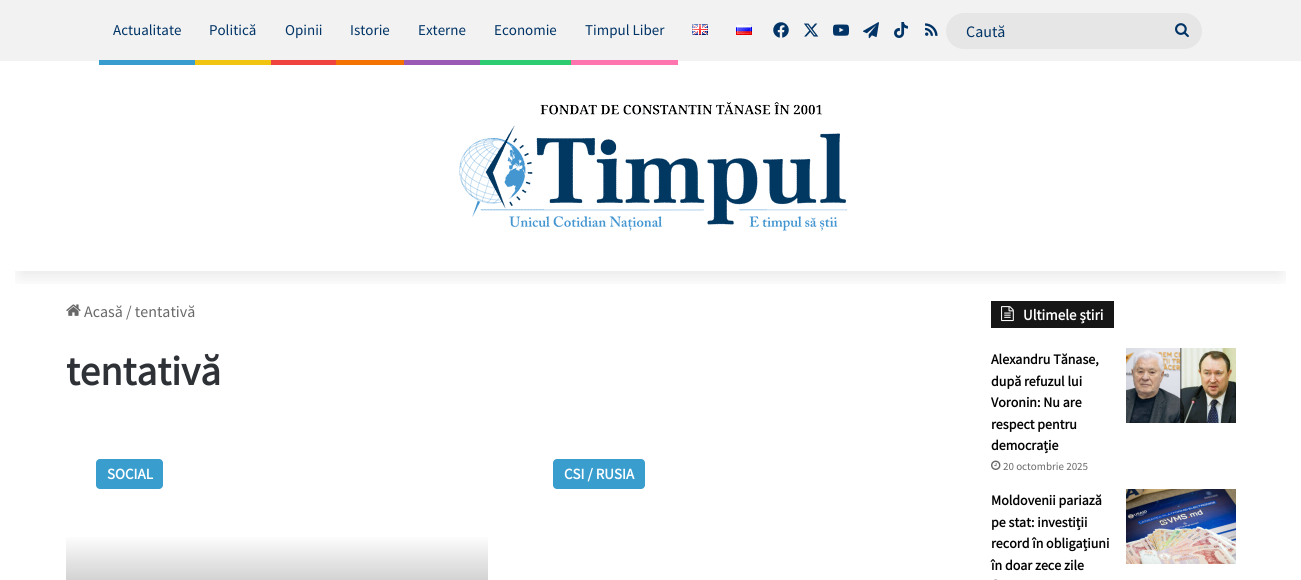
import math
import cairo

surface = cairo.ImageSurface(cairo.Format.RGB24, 1301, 580)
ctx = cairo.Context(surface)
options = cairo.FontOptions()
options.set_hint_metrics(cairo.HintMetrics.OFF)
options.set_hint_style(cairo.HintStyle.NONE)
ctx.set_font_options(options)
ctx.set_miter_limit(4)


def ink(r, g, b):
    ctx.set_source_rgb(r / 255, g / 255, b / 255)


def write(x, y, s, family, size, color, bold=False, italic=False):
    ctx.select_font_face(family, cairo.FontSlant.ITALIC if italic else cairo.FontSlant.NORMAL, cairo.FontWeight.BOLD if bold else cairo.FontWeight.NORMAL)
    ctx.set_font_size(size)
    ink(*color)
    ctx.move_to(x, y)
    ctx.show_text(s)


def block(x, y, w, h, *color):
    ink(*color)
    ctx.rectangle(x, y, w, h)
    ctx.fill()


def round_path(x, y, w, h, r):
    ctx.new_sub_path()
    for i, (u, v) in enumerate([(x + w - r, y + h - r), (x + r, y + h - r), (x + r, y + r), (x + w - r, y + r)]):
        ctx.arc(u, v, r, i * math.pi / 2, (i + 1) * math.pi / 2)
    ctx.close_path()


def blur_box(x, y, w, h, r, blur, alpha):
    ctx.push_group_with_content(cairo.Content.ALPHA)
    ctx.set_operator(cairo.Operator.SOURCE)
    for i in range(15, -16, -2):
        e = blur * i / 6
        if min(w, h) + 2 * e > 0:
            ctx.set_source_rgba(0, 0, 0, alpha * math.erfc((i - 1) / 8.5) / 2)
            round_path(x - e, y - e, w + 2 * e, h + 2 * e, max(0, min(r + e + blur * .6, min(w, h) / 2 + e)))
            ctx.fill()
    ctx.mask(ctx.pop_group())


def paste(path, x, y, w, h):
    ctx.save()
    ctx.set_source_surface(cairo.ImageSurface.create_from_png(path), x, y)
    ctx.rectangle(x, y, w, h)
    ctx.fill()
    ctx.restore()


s1 = dict(family="Source Sans Pro", size=15, color=(0, 51, 102))
s2 = dict(family="Source Sans Pro", size=16, color=(0, 51, 102))
s3 = dict(family="Source Sans Pro", size=16, color=(104, 104, 104))
s4 = dict(family="Source Sans Pro", size=41, color=(46, 49, 54), bold=True)
s5 = dict(family="Source Sans Pro", size=15, color=(255, 255, 255), bold=True)
s6 = dict(family="Source Sans Pro", size=14, color=(3, 3, 3), bold=True)
s7 = dict(family="Source Sans Pro", size=11, color=(104, 104, 104))

ink(255, 255, 255)
ctx.paint()
paste("pic11.png", 66, 304, 15, 12)
block(991, 301, 123, 27, 22, 22, 22)
paste("pic12.png", 1001, 306, 13, 16)
ctx.save()
ctx.rectangle(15, 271, 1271, 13)
ctx.clip()
ink(0, 0, 0)
blur_box(20, 45, 1261, 231, 0, 10, 0.1)
ctx.restore()
block(0, 0, 1301, 61, 242, 242, 242)
block(99, 60, 96, 5, 55, 156, 206)
write(113, 35, "Actualitate", **s1)
block(195, 60, 76, 5, 241, 196, 15)
write(209, 35, "Politică", **s1)
block(271, 60, 65, 5, 239, 68, 62)
write(285, 35, "Opinii", **s1)
block(336, 60, 68, 5, 244, 114, 0)
write(350, 35, "Istorie", **s1)
block(404, 60, 76, 5, 155, 89, 182)
write(418, 35, "Externe", **s1)
block(480, 60, 91, 5, 46, 204, 113)
write(494, 35, "Economie", **s1)
block(571, 60, 107, 5, 255, 117, 176)
write(585, 35, "Timpul Liber", **s1)
paste("pic1.png", 692, 24, 16, 11)
paste("pic2.png", 736, 24, 16, 11)
paste("pic3.png", 773, 22, 16, 16)
paste("pic4.png", 804, 23, 15, 14)
paste("pic5.png", 833, 24, 16, 12)
paste("pic6.png", 863, 22, 16, 17)
paste("pic7.png", 894, 22, 14, 16)
paste("pic8.png", 925, 23, 13, 13)
ink(230, 230, 230)
round_path(946, 13, 256, 36, 18)
ctx.fill()
write(966, 37, "Caută", **s2)
paste("pic9.png", 1175, 23, 14, 15)
paste("pic10.png", 459, 101, 388, 130)
write(84, 317, "Acasă / tentativă", **s3)
write(66, 385, "tentativă", **s4)
ink(57, 157, 206)
round_path(96, 459, 67, 30, 4)
ctx.fill()
write(107, 479, "SOCIAL", **s5)
gradient = cairo.LinearGradient(277, 534, 277, 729)
gradient.add_color_stop_rgba(0, 1, 1, 1, 1)
gradient.add_color_stop_rgba(1, 0.259, 0.259, 0.259, 1)
ctx.set_source(gradient)
ctx.rectangle(66, 537, 422, 43)
ctx.fill()
ink(57, 157, 206)
round_path(553, 459, 92, 30, 4)
ctx.fill()
write(564, 479, "CSI / RUSIA", **s5)
write(1023, 320, "Ultimele știri", **s5)
write(991, 364, "Alexandru Tănase,", **s6)
write(991, 386, "după refuzul lui", **s6)
write(991, 407, "Voronin: Nu are", **s6)
write(991, 429, "respect pentru", **s6)
write(991, 450, "democrație", **s6)
paste("pic13.png", 991, 460, 10, 10)
write(1003, 470, "20 octombrie 2025", **s7)
paste("pic14.png", 1126, 348, 110, 75)
write(991, 505, "Moldovenii pariază", **s6)
write(991, 527, "pe stat: investiții", **s6)
write(991, 548, "record în obligațiuni", **s6)
write(991, 570, "în doar zece zile", **s6)
paste("pic15.png", 994, 579, 4, 1)
paste("pic16.png", 1126, 489, 110, 75)
surface.write_to_png("screenshot.png")
